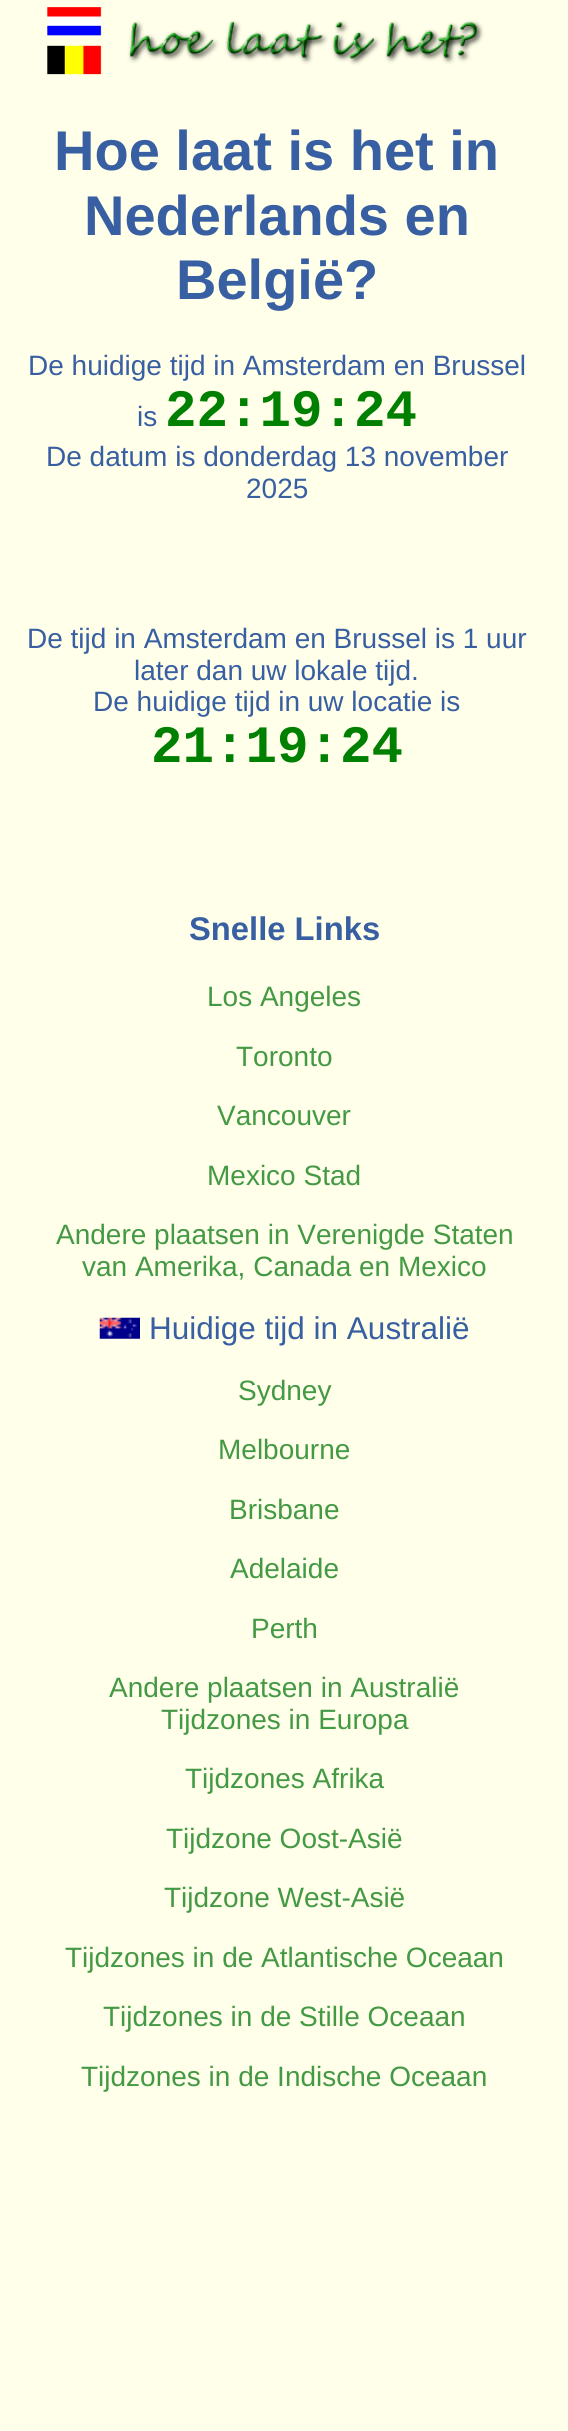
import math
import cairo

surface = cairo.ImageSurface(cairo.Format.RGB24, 568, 2431)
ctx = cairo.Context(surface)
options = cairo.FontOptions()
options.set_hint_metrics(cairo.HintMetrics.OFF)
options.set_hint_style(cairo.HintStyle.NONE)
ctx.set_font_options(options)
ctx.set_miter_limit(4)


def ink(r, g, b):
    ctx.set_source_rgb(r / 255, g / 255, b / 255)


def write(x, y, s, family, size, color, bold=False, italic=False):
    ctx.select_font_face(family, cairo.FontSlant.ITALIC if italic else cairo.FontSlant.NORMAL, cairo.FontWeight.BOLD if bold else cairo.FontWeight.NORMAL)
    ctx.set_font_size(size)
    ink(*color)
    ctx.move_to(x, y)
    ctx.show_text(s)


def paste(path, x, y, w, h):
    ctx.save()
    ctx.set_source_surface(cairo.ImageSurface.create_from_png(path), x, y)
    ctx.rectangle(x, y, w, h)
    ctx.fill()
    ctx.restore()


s1 = dict(family="Liberation Sans", size=56, color=(56, 95, 162), bold=True)
s2 = dict(family="Liberation Sans", size=28, color=(56, 95, 162))
s3 = dict(family="Liberation Mono", size=52.5, color=(0, 128, 0), bold=True)
s4 = dict(family="Liberation Sans", size=32.75, color=(56, 95, 162), bold=True)
s5 = dict(family="Liberation Sans", size=28, color=(68, 153, 68))
s6 = dict(family="Liberation Sans", size=31.5, color=(56, 95, 162))

ink(255, 255, 234)
ctx.paint()
paste("pic1.png", 47, 7, 437, 68)
write(54, 170, "Hoe laat is het in", **s1)
write(84, 235, "Nederlands en", **s1)
write(176, 299, "België?", **s1)
write(28, 375, "De huidige tijd in Amsterdam en Brussel", **s2)
write(137, 426, "is", **s2)
write(165, 426, "22:19:24", **s3)
write(46, 466, "De datum is donderdag 13 november", **s2)
write(246, 498, "2025", **s2)
write(27, 648, "De tijd in Amsterdam en Brussel is 1 uur", **s2)
write(134, 680, "later dan uw lokale tijd.", **s2)
write(93, 711, "De huidige tijd in uw locatie is", **s2)
write(151, 762, "21:19:24", **s3)
write(189, 940, "Snelle Links", **s4)
write(207, 1006, "Los Angeles", **s5)
write(236, 1066, "Toronto", **s5)
write(217, 1125, "Vancouver", **s5)
write(207, 1185, "Mexico Stad", **s5)
write(56, 1244, "Andere plaatsen in Verenigde Staten", **s5)
write(82, 1276, "van Amerika, Canada en Mexico", **s5)
paste("pic2.png", 99, 1317, 41, 22)
write(149, 1339, "Huidige tijd in Australië", **s6)
write(238, 1400, "Sydney", **s5)
write(218, 1459, "Melbourne", **s5)
write(229, 1519, "Brisbane", **s5)
write(230, 1578, "Adelaide", **s5)
write(251, 1638, "Perth", **s5)
write(109, 1697, "Andere plaatsen in Australië", **s5)
write(161, 1729, "Tijdzones in Europa", **s5)
write(185, 1788, "Tijdzones Afrika", **s5)
write(166, 1848, "Tijdzone Oost-Asië", **s5)
write(164, 1907, "Tijdzone West-Asië", **s5)
write(65, 1967, "Tijdzones in de Atlantische Oceaan", **s5)
write(103, 2026, "Tijdzones in de Stille Oceaan", **s5)
write(81, 2086, "Tijdzones in de Indische Oceaan", **s5)
surface.write_to_png("screenshot.png")
